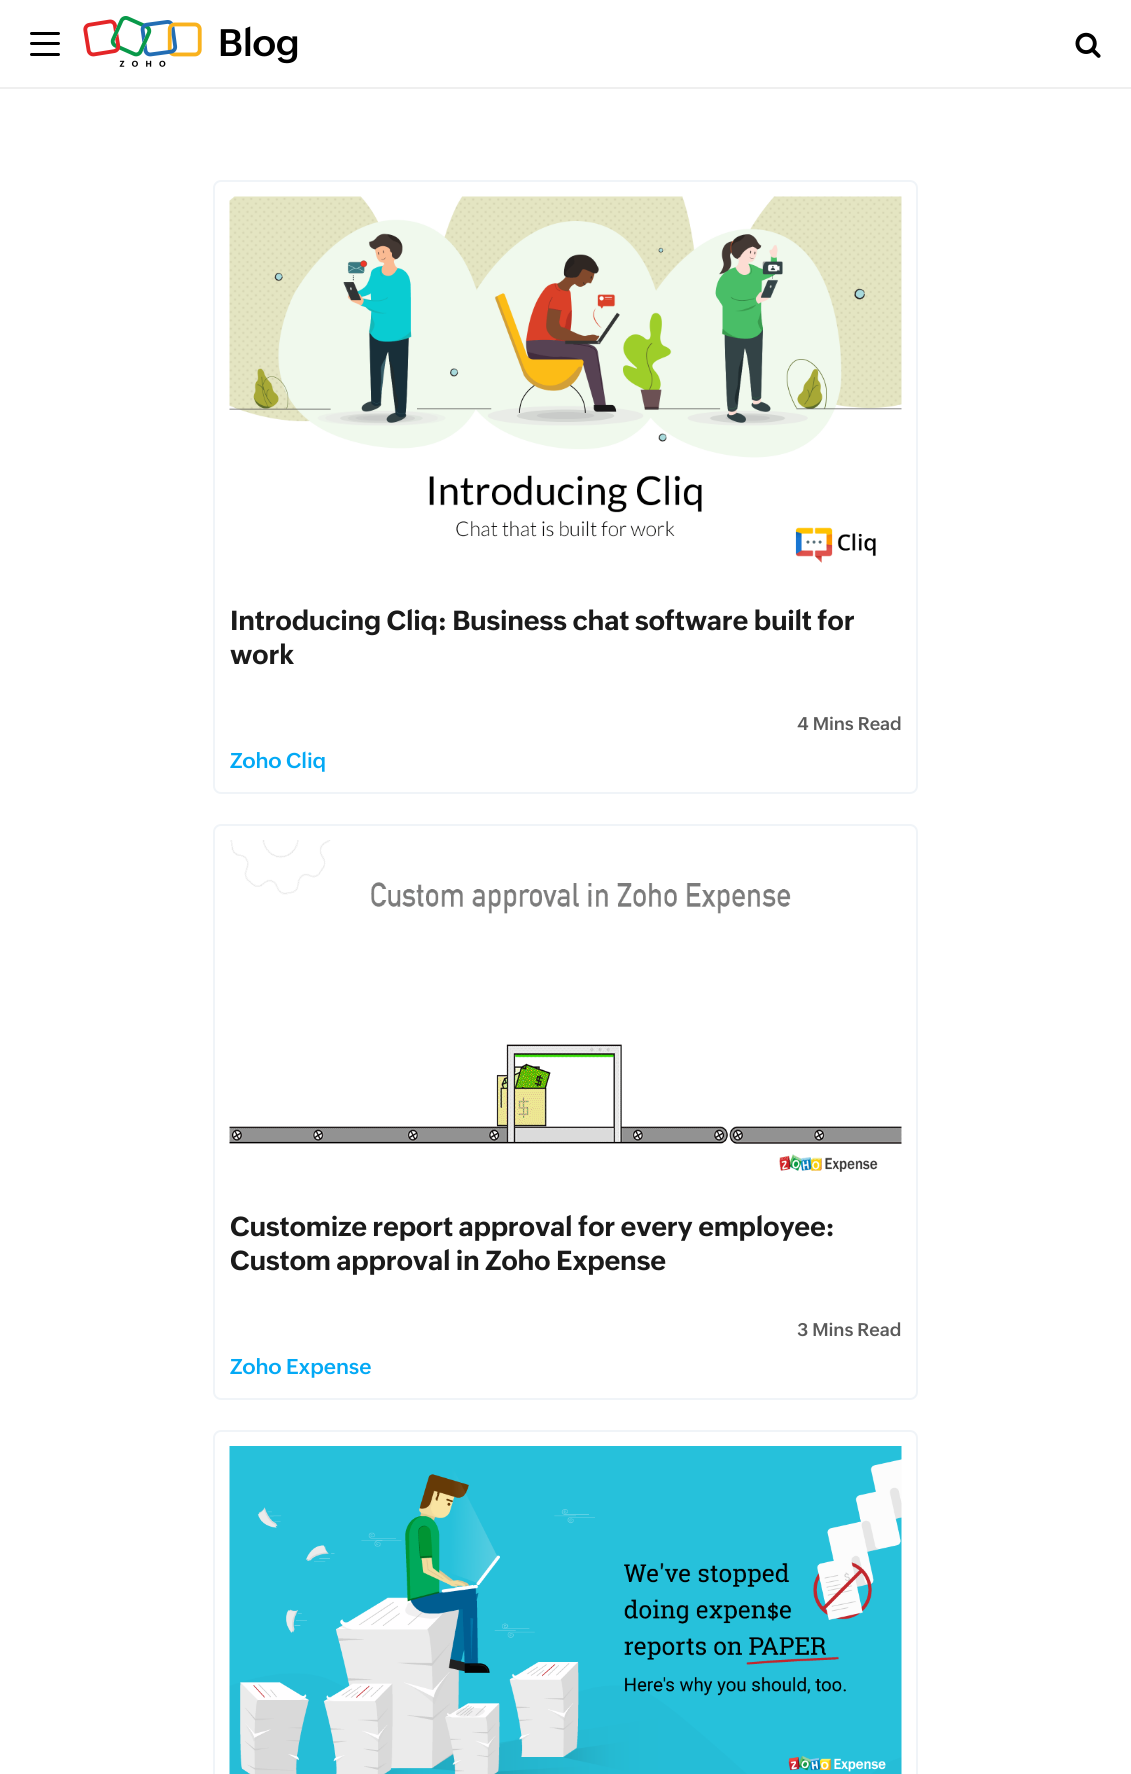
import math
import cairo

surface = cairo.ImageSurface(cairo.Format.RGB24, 1131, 1774)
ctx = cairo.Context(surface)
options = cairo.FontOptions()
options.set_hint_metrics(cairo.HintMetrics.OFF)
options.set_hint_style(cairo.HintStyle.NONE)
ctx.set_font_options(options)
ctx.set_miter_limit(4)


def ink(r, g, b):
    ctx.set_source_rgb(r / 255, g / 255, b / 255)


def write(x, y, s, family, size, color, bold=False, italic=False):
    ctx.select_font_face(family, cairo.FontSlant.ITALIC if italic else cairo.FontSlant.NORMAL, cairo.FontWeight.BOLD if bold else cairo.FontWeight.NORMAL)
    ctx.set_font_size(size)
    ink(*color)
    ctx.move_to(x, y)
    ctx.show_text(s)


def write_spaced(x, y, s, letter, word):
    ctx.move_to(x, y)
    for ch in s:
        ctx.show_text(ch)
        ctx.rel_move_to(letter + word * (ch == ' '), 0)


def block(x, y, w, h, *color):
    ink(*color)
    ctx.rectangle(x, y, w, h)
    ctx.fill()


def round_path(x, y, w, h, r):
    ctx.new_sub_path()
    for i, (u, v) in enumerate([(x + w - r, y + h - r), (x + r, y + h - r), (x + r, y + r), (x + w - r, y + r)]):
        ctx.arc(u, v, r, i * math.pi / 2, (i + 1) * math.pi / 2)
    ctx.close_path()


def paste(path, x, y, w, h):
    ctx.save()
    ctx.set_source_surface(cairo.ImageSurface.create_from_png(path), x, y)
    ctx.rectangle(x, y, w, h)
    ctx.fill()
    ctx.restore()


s1 = dict(family="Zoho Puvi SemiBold", size=37.5, color=(0, 0, 0))
s2 = dict(family="Zoho Puvi SemiBold", size=18, color=(90, 90, 90))
s3 = dict(family="Zoho Puvi SemiBold", size=21, color=(3, 169, 245))

ink(255, 255, 255)
ctx.paint()
block(0, 87, 1131, 2, 239, 239, 239)
ink(0, 0, 0)
round_path(30, 53, 30, 3, 1.5)
ctx.fill()
round_path(30, 32, 30, 3, 1.5)
ctx.fill()
round_path(30, 42, 30, 3, 1.5)
ctx.fill()
paste("pic1.png", 83, 16, 119, 51)
write(218, 56, "Blog", **s1)
paste("pic2.png", 1075, 32, 26, 26)
round_path(214, 181, 703, 612, 7)
ink(240, 244, 248)
ctx.stroke()
paste("pic3.png", 229, 196, 673, 367)
ctx.select_font_face("Zoho Puvi", cairo.FontSlant.NORMAL, cairo.FontWeight.BOLD)
ctx.set_font_size(27)
ink(26, 26, 26)
write_spaced(230, 630, "Introducing Cliq: Business chat software built for", -0.3, 0)
write_spaced(230, 664, "work", -0.3, 0)
write(797, 730, "4 Mins Read", **s2)
write(230, 768, "Zoho Cliq", **s3)
round_path(214, 825, 703, 574, 7)
ink(240, 244, 248)
ctx.stroke()
paste("pic4.png", 229, 840, 673, 332)
ctx.select_font_face("Zoho Puvi", cairo.FontSlant.NORMAL, cairo.FontWeight.BOLD)
ctx.set_font_size(27)
ink(26, 26, 26)
write_spaced(230, 1236, "Customize report approval for every employee:", -0.3, 0)
write_spaced(230, 1270, "Custom approval in Zoho Expense", -0.3, 0)
write(797, 1336, "3 Mins Read", **s2)
write(230, 1374, "Zoho Expense", **s3)
round_path(214, 1431, 703, 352, 7)
ink(240, 244, 248)
ctx.stroke()
paste("pic5.png", 229, 1446, 673, 328)
surface.write_to_png("screenshot.png")
